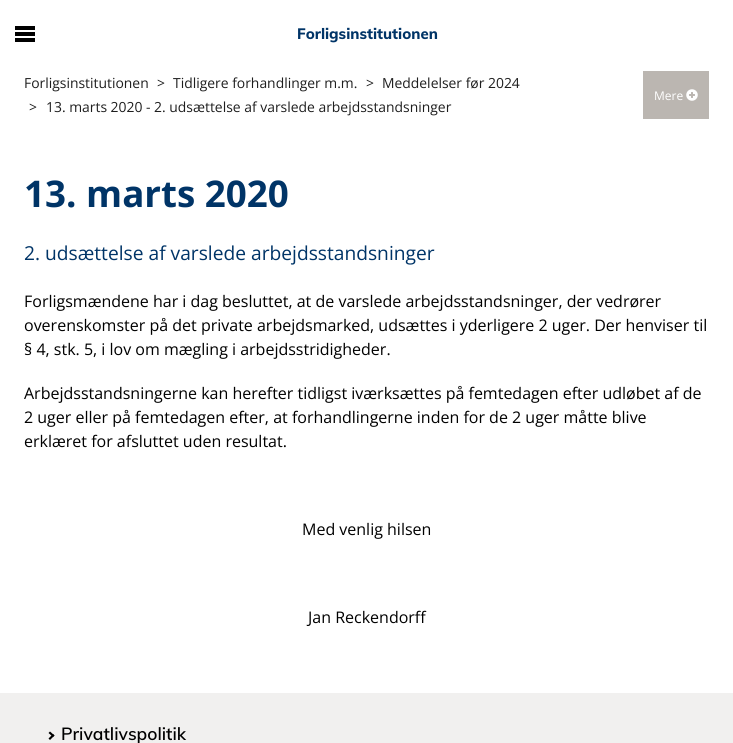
import math
import cairo

surface = cairo.ImageSurface(cairo.FORMAT_RGB24, 733, 743)
c = cairo.Context(surface)
options = cairo.FontOptions()
options.set_hint_metrics(cairo.HINT_METRICS_OFF)
options.set_hint_style(cairo.HINT_STYLE_NONE)
c.set_font_options(options)
c.set_miter_limit(4)
def C(code):
 c.set_source_rgb(*(v / 255 for v in bytes.fromhex(code[-6:])))
def F(family, size, italic, bold):
 c.select_font_face(family, cairo.FONT_SLANT_ITALIC if italic else cairo.FONT_SLANT_NORMAL, cairo.FONT_WEIGHT_BOLD if bold else cairo.FONT_WEIGHT_NORMAL)
 c.set_font_size(size)
def T(x, y, s):
 c.move_to(x, y)
 c.show_text(s)
def R(x, y, w, h):
 c.rectangle(x, y, w, h)
 c.fill()
def I(path, x, y, w, h):
 c.save()
 c.set_source_surface(cairo.ImageSurface.create_from_png(path), x, y)
 c.rectangle(x, y, w, h)
 c.fill()
 c.restore()
C('ffffff')
c.paint()
C('000000')
R(15,26,20,4)
R(15,32,20,4)
R(15,38,20,4)
F('Muli ExtraBold',15,0,0)
C('003467')
T(297,39,'Forligsinstitutionen')
F('Open Sans',13.9,0,0)
C('1e1e1e')
T(24,88,'Forligsinstitutionen')
T(157,88,'>')
T(173,88,'Tidligere forhandlinger m.m.')
T(366,88,'>')
T(382,88,'Meddelelser før 2024')
T(29,112,'>')
T(46,112,'13. marts 2020 - 2. udsættelse af varslede arbejdsstandsninger')
C('bbb6b1')
R(643,71,66,48)
F('Open Sans',12,0,0)
C('ffffff')
T(654,100,'Mere')
I('1.png',686,89,12,12)
F('Open Sans',36.75,0,1)
C('003467')
T(24,207,'13. marts 2020')
F('Open Sans',19.2,0,0)
T(24,260,'2. udsættelse af varslede arbejdsstandsninger')
F('Open Sans',16,0,0)
C('000000')
T(24,307,'Forligsmændene har i dag besluttet, at de varslede arbejdsstandsninger, der vedrører')
T(24,331,'overenskomster på det private arbejdsmarked, udsættes i yderligere 2 uger. Der henviser til')
T(24,355,'§ 4, stk. 5, i lov om mægling i arbejdsstridigheder.')
T(24,399,'Arbejdsstandsningerne kan herefter tidligst iværksættes på femtedagen efter udløbet af de')
T(24,423,'2 uger eller på femtedagen efter, at forhandlingerne inden for de 2 uger måtte blive')
T(24,447,'erklæret for afsluttet uden resultat.')
T(302,535,'Med venlig hilsen')
T(308,623,'Jan Reckendorff')
C('f1f0ef')
R(0,693,733,50)
C('000000')
c.new_path()
c.move_to(50,731.5)
c.line_to(54.5,735.5)
c.line_to(53,737)
c.line_to(48.5,733)
c.close_path()
c.fill()
c.new_path()
c.move_to(53,734)
c.line_to(54.5,735.5)
c.line_to(50,740)
c.line_to(48.5,738.5)
c.close_path()
c.fill()
F('Muli SemiBold',17.5,0,0)
T(61,740,'Privatlivspolitik')
surface.write_to_png('o.png')
